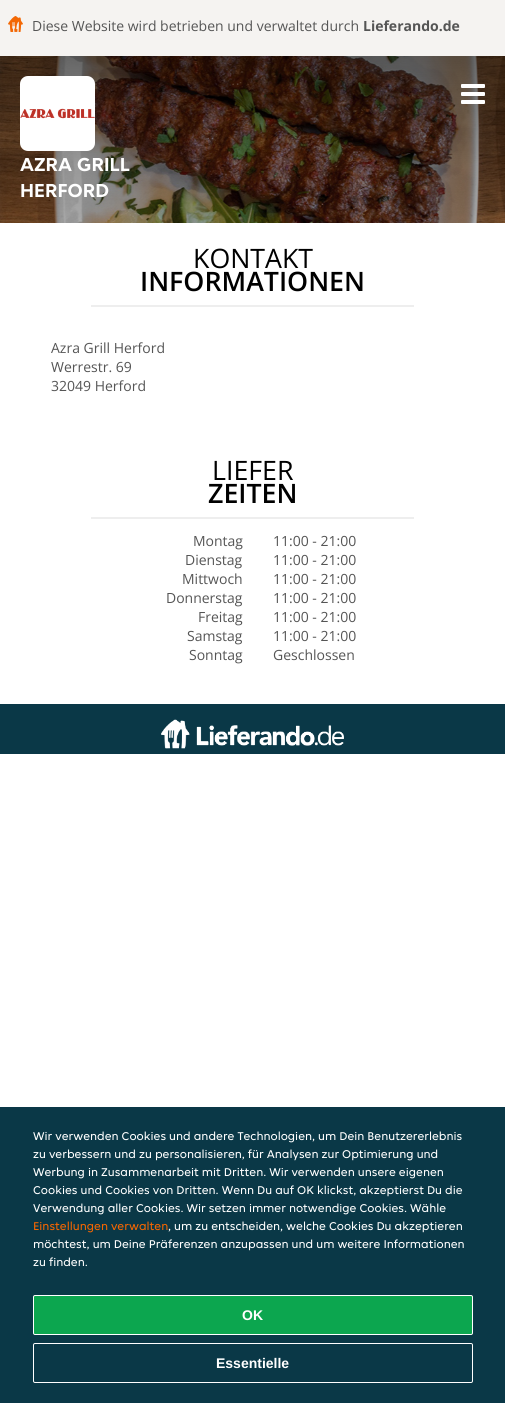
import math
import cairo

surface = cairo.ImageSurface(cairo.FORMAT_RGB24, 505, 1403)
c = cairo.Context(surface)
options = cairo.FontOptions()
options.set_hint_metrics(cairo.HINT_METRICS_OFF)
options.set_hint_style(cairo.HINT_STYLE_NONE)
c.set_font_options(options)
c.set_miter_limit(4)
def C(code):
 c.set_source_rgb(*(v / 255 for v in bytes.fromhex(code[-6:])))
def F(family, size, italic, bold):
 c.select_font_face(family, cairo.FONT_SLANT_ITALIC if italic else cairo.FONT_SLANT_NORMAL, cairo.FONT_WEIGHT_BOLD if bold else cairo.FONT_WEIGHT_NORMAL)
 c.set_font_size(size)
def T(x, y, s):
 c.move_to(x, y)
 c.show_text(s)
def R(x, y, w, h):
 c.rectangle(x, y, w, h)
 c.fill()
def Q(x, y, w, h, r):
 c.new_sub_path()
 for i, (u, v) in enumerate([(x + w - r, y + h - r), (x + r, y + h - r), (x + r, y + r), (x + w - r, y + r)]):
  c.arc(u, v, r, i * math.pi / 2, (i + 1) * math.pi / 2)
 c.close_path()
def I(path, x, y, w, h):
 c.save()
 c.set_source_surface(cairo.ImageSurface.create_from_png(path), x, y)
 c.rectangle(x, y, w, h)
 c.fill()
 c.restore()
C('ffffff')
c.paint()
C('f5f3f1')
R(0,0,505,56)
I('1.png',8,16,15,16)
F('Open Sans',14,0,0)
C('555555')
T(32,31,'Diese Website wird betrieben und verwaltet durch')
F('Open Sans',14,0,1)
T(363,31,'Lieferando.de')
I('2.png',0,56,505,167)
gradient = cairo.LinearGradient(252,0,253,500)
gradient.add_color_stop_rgba(0,0,0,0,.7)
gradient.add_color_stop_rgba(.33,0,0,0,.4)
gradient.add_color_stop_rgba(.67,0,0,0,.2)
gradient.add_color_stop_rgba(1,0,0,0,0)
c.set_source(gradient)
R(0,56,505,167)
I('3.png',461,84,24,20)
C('ffffff')
Q(20,76,75,75,8)
c.fill()
I('4.png',20,108,75,11)
F('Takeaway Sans',20,0,1)
T(20,171,'AZRA GRILL')
T(20,197,'HERFORD')
F('Open Sans',26.75,0,0)
C('000000')
T(193,268,'KONTAKT')
F('Open Sans SemiBold',26.75,0,0)
T(140,291,'INFORMATIONEN')
C('eeeeee')
R(91,305,323,2)
F('Open Sans',14,0,0)
C('555555')
T(51,353,'Azra Grill Herford')
T(51,372,'Werrestr. 69')
T(51,391,'32049 Herford')
F('Open Sans',26.75,0,0)
C('000000')
T(212,480,'LIEFER')
F('Open Sans SemiBold',26.75,0,0)
T(208,503,'ZEITEN')
C('eeeeee')
R(91,517,323,2)
F('Open Sans',14,0,0)
C('555555')
T(193,546,'Montag')
T(273,546,'11:00 - 21:00')
T(185,565,'Dienstag')
T(273,565,'11:00 - 21:00')
T(182,584,'Mittwoch')
T(273,584,'11:00 - 21:00')
T(166,603,'Donnerstag')
T(273,603,'11:00 - 21:00')
T(198,622,'Freitag')
T(273,622,'11:00 - 21:00')
T(187,641,'Samstag')
T(273,641,'11:00 - 21:00')
T(189,660,'Sonntag')
T(273,660,'Geschlossen')
C('0a3847')
R(0,704,505,50)
I('5.png',161,719,183,30)
R(0,1107,505,296)
F('Takeaway Sans',12,0,0)
C('ffffff')
T(33,1140,'Wir verwenden Cookies und andere Technologien, um Dein Benutzererlebnis')
T(33,1158,'zu verbessern und zu personalisieren, für Analysen zur Optimierung und')
T(33,1176,'Werbung in Zusammenarbeit mit Dritten. Wir verwenden unsere eigenen')
T(33,1194,'Cookies und Cookies von Dritten. Wenn Du auf OK klickst, akzeptierst Du die')
T(33,1212,'Verwendung aller Cookies. Wir setzen immer notwendige Cookies. Wähle')
C('f86600')
T(33,1230,'Einstellungen verwalten')
C('ffffff')
T(168,1230,', um zu entscheiden, welche Cookies Du akzeptieren')
T(33,1248,'möchtest, um Deine Präferenzen anzupassen und um weitere Informationen')
T(33,1266,'zu finden.')
C('0ca64f')
Q(33.5,1295.5,439,39,1.5)
c.fill_preserve()
C('ffffff')
c.set_line_width(1)
c.stroke()
F('Liberation Sans',14,0,1)
T(242,1320,'OK')
Q(33.5,1343.5,439,39,1.5)
c.stroke()
T(216,1368,'Essentielle')
surface.write_to_png('o.png')
